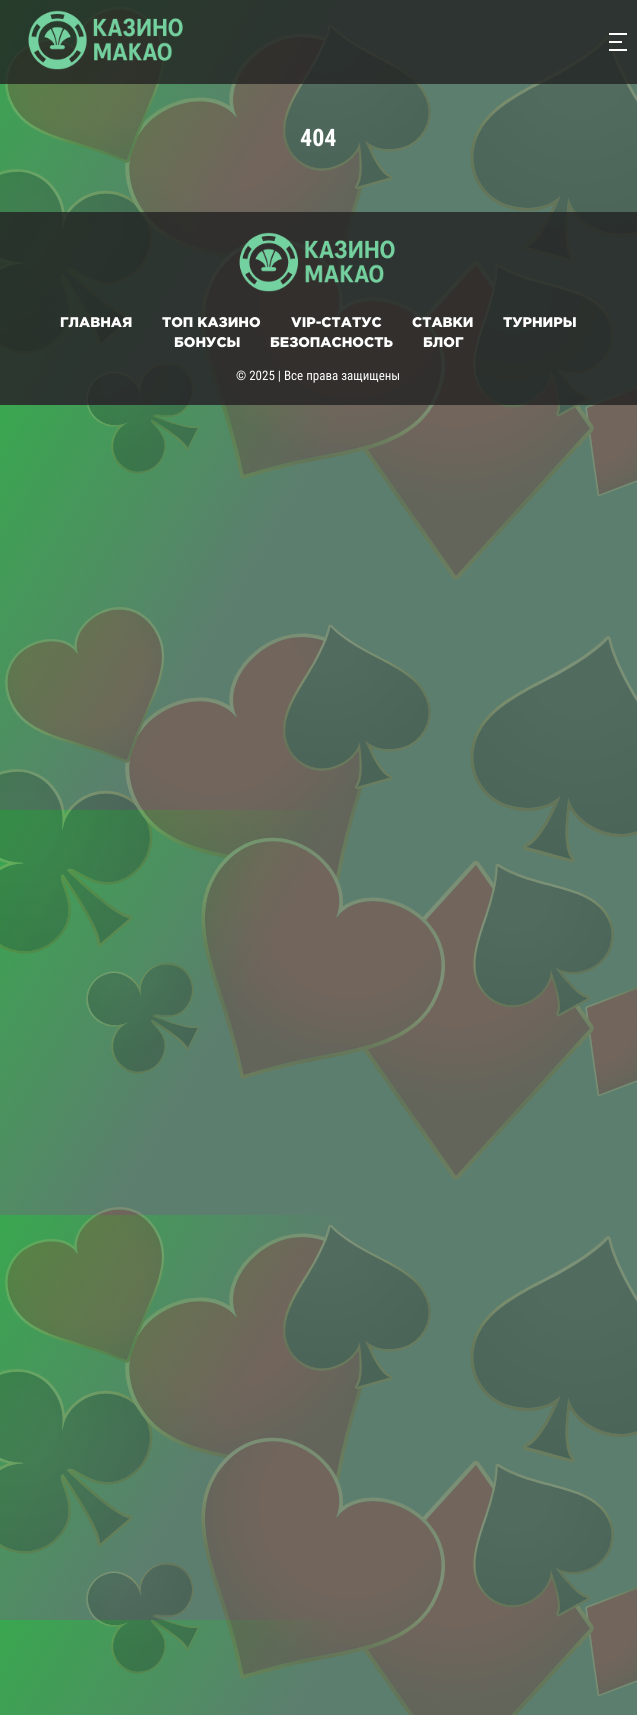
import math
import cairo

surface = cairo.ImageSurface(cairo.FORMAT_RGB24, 637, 1715)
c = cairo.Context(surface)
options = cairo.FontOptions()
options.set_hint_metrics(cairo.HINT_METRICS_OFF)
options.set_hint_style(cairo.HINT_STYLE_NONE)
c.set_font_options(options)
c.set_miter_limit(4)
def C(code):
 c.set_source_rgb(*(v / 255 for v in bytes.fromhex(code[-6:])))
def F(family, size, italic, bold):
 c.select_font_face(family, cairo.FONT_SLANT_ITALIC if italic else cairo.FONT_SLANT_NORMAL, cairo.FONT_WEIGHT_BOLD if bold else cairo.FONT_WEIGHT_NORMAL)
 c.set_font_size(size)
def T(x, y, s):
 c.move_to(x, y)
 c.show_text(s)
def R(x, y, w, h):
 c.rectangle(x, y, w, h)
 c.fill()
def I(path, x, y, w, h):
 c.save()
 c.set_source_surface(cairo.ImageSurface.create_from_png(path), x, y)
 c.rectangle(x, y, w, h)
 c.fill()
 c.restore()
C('ffffff')
c.paint()
I('1.png',0,0,637,1715)
c.set_source_rgba(0.133,0.133,0.133,0.8)
R(0,0,637,84)
I('2.png',28,10,155,60)
C('ffffff')
R(609,33,18,2)
R(609,41,13,2)
R(609,49,18,2)
F('Roboto Condensed',24,0,1)
T(300,146,'404')
c.set_source_rgba(0.133,0.133,0.133,0.8)
R(0,212,637,193)
I('3.png',239,232,156,60)
F('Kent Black',14,0,0)
C('ffffff')
T(60,327,'ГЛАВНАЯ')
T(162,327,'ТОП КАЗИНО')
T(291,327,'VIP-СТАТУС')
T(412,327,'СТАВКИ')
T(503,327,'ТУРНИРЫ')
T(174,347,'БОНУСЫ')
T(270,347,'БЕЗОПАСНОСТЬ')
T(423,347,'БЛОГ')
F('Roboto Condensed',13,0,0)
T(236,380,'© 2025 | Все права защищены')
surface.write_to_png('o.png')
